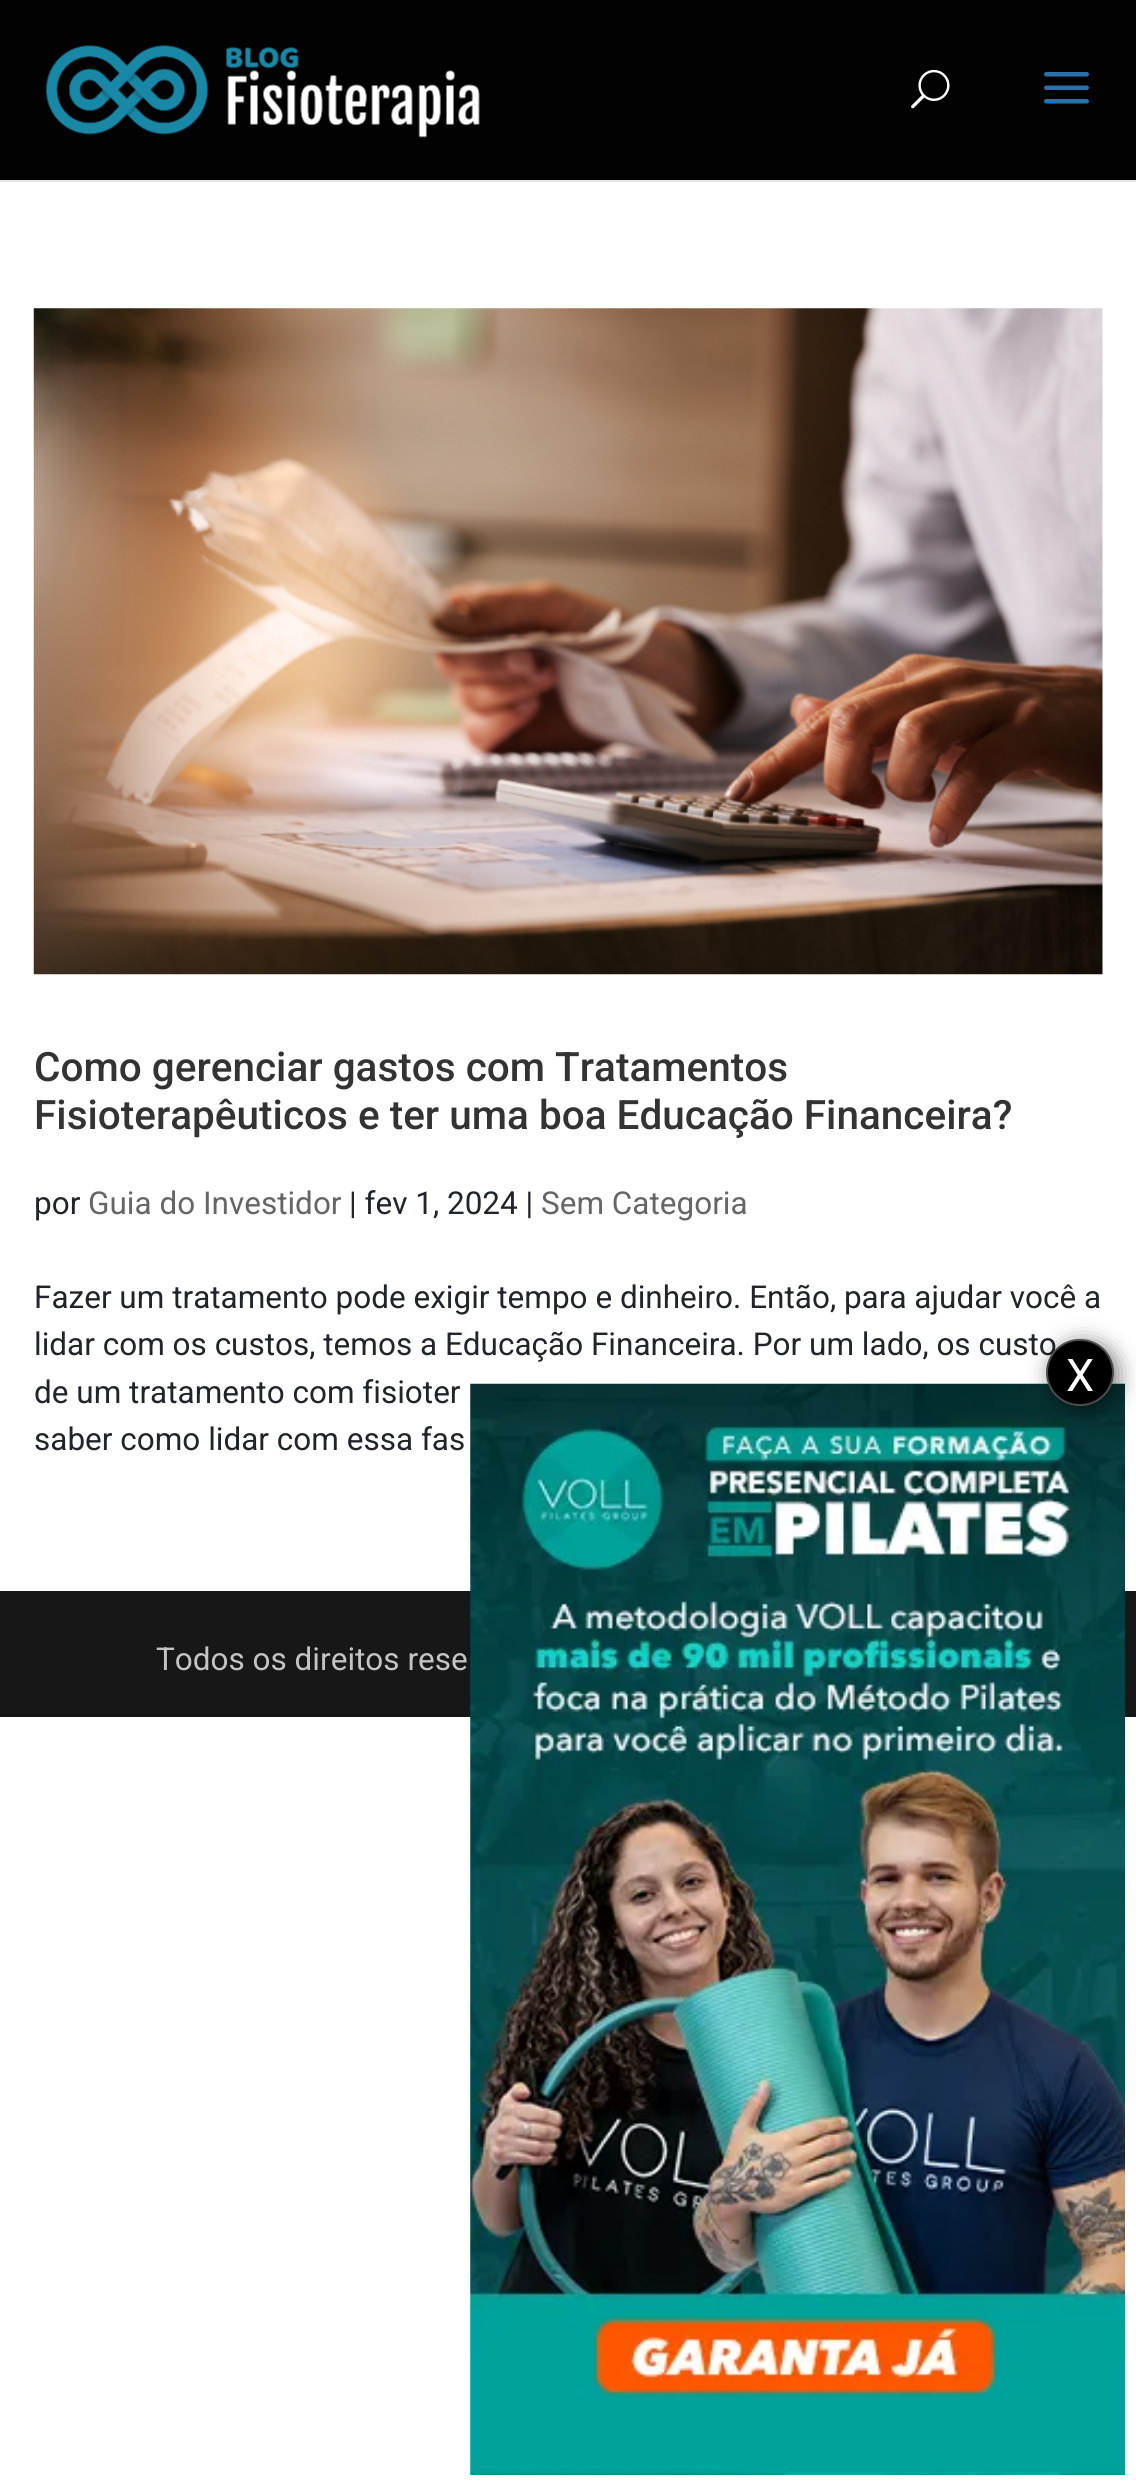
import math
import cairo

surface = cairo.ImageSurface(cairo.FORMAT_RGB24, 1136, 2481)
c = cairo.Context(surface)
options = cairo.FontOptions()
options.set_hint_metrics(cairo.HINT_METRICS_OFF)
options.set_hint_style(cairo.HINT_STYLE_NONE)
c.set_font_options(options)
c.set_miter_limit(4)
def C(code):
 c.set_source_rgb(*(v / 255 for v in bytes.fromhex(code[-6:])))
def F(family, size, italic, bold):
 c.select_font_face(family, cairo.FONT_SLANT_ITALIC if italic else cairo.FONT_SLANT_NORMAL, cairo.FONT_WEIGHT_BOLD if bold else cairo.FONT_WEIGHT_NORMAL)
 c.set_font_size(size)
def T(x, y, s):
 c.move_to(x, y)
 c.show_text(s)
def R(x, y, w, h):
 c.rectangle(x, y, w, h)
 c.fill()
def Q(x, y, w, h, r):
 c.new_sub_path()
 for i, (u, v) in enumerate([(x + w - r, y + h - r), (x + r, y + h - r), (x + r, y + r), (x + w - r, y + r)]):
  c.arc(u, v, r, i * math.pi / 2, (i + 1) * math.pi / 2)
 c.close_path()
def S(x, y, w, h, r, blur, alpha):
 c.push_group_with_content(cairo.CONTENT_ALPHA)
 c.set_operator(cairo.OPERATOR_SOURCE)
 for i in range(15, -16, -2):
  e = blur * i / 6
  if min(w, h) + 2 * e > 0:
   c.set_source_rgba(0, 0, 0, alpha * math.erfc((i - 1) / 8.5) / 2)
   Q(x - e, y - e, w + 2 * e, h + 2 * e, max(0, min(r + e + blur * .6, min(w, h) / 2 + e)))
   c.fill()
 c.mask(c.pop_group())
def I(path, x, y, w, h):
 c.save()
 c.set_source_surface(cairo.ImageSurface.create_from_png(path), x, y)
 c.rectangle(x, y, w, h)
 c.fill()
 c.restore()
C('ffffff')
c.paint()
C('e6e6e6')
R(0,180,1136,2)
C('020202')
R(0,0,1136,180)
I('1.png',45,45,435,93)
I('2.png',911,69,39,40)
I('3.png',1044,72,45,32)
I('4.png',33,308,1070,667)
F('Roboto Medium',40.5,0,0)
C('333333')
T(34,1081,'Como gerenciar gastos com Tratamentos')
T(34,1129,'Fisioterapêuticos e ter uma boa Educação Financeira?')
F('Roboto',31.5,0,0)
C('212529')
T(34,1214,'por')
C('666666')
T(88,1214,'Guia do Investidor')
C('212529')
T(349,1214,'| fev 1, 2024 |')
C('666666')
T(541,1214,'Sem Categoria')
C('212529')
T(34,1308,'Fazer um tratamento pode exigir tempo e dinheiro. Então, para ajudar você a')
T(34,1355,'lidar com os custos, temos a Educação Financeira. Por um lado, os custo')
T(34,1403,'de um tratamento com fisioter')
T(34,1450,'saber como lidar com essa fas')
C('171717')
R(0,1591,1136,126)
C('c4c4c4')
T(156,1670,'Todos os direitos rese')
I('5.png',470,1383,655,1092)
C('000000')
S(1051,1343,67,68,33.5,11,.52)
C('000000')
Q(1047,1340,66,65,32.5)
c.fill_preserve()
C('4c4c4c')
c.stroke()
F('Roboto',45,0,0)
C('ffffff')
T(1066,1391,'X')
surface.write_to_png('o.png')
